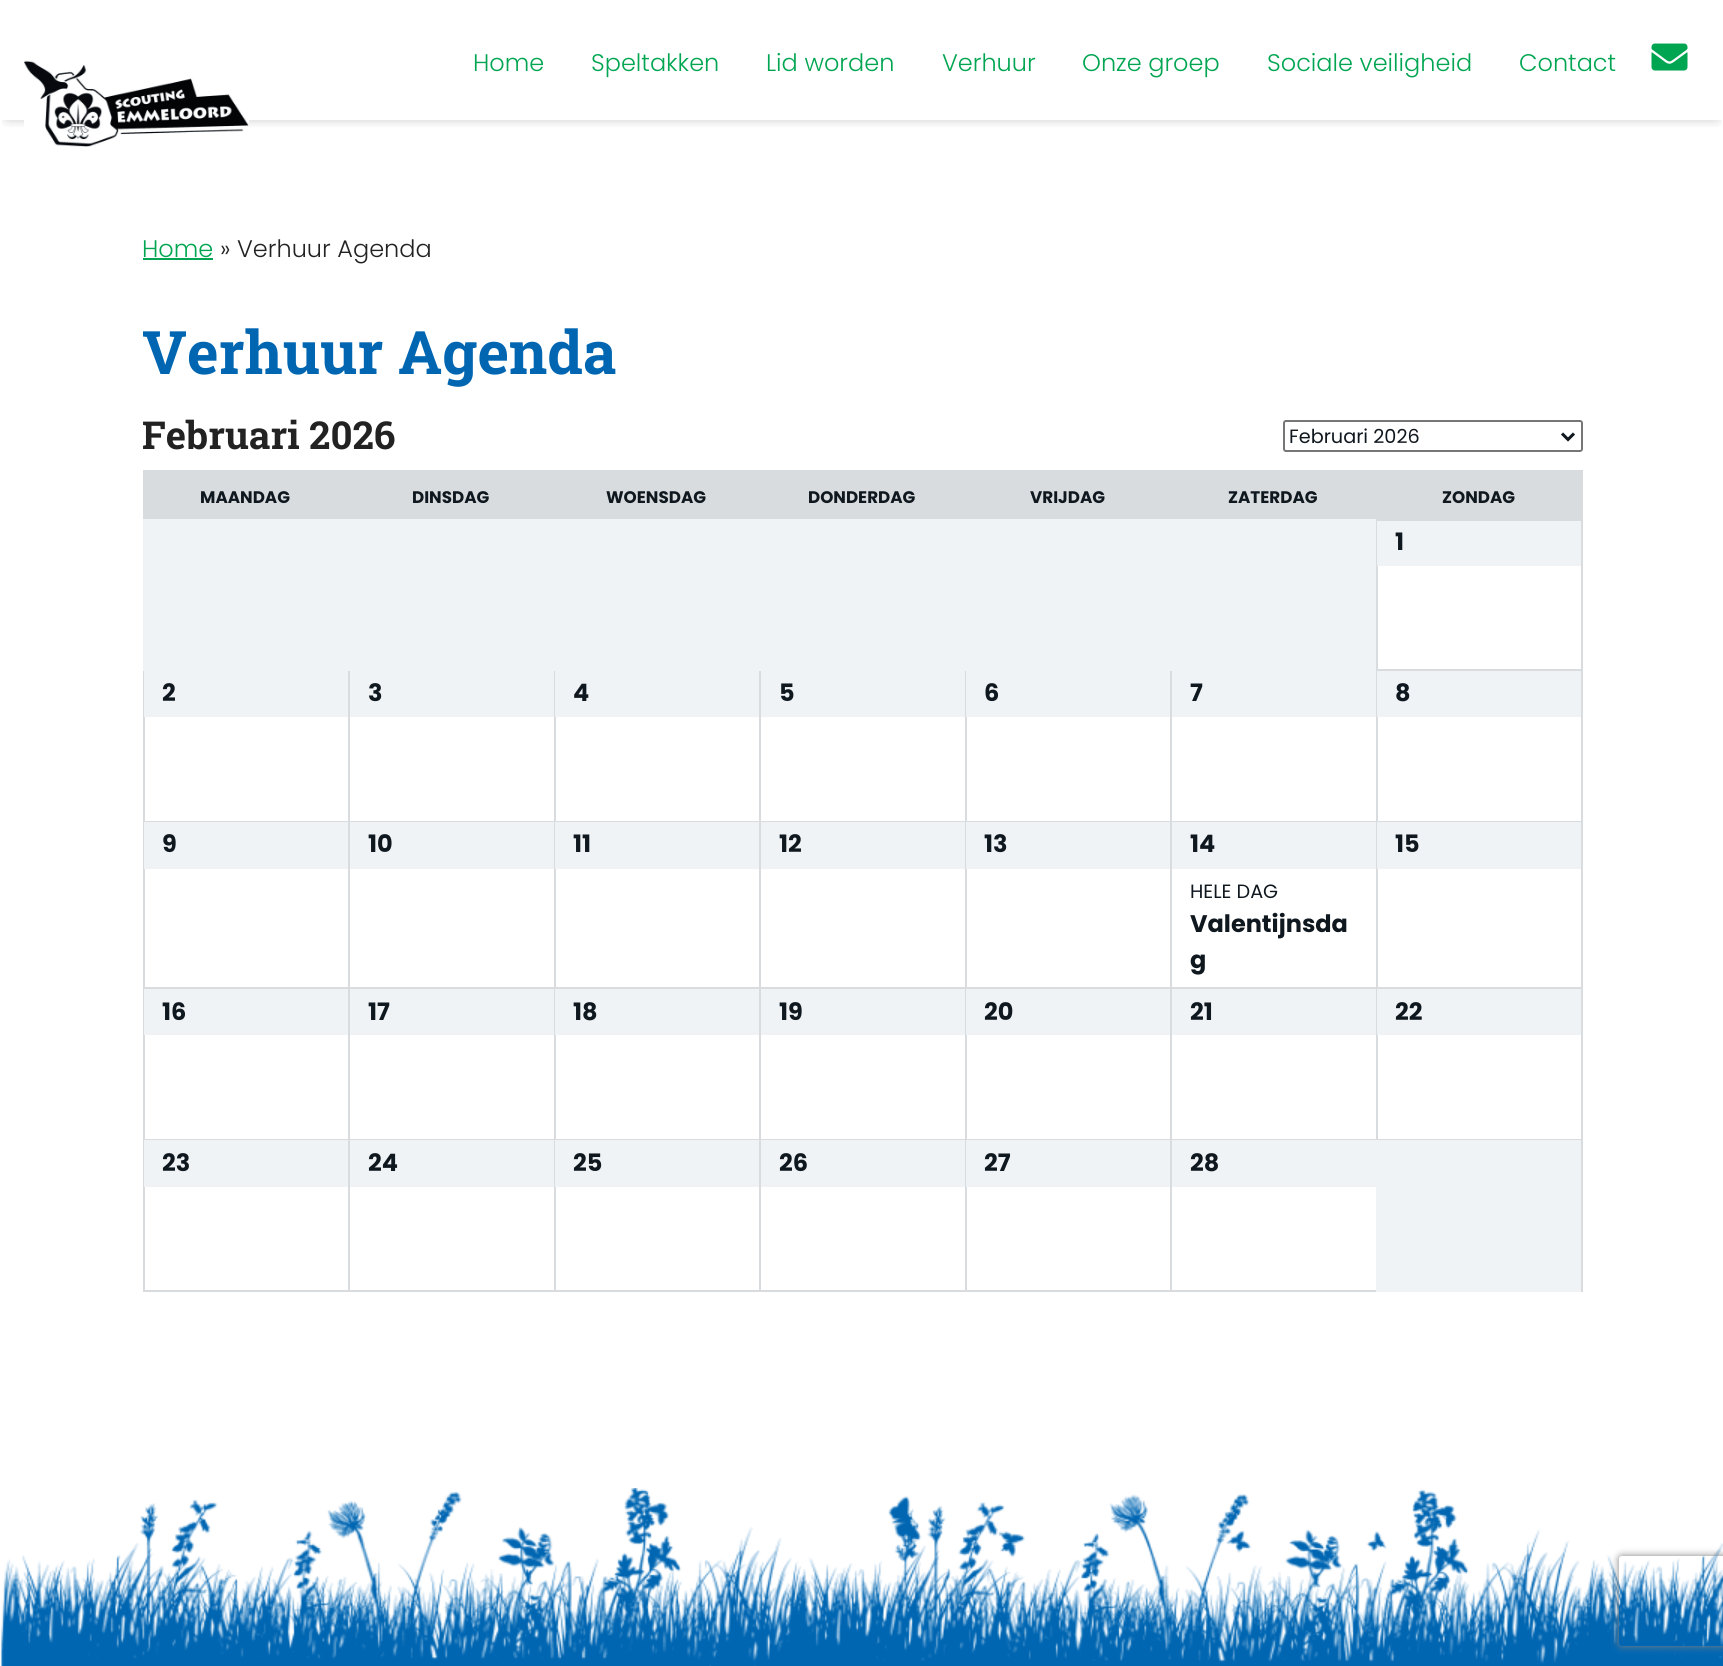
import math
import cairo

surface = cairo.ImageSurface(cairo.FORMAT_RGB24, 1723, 1666)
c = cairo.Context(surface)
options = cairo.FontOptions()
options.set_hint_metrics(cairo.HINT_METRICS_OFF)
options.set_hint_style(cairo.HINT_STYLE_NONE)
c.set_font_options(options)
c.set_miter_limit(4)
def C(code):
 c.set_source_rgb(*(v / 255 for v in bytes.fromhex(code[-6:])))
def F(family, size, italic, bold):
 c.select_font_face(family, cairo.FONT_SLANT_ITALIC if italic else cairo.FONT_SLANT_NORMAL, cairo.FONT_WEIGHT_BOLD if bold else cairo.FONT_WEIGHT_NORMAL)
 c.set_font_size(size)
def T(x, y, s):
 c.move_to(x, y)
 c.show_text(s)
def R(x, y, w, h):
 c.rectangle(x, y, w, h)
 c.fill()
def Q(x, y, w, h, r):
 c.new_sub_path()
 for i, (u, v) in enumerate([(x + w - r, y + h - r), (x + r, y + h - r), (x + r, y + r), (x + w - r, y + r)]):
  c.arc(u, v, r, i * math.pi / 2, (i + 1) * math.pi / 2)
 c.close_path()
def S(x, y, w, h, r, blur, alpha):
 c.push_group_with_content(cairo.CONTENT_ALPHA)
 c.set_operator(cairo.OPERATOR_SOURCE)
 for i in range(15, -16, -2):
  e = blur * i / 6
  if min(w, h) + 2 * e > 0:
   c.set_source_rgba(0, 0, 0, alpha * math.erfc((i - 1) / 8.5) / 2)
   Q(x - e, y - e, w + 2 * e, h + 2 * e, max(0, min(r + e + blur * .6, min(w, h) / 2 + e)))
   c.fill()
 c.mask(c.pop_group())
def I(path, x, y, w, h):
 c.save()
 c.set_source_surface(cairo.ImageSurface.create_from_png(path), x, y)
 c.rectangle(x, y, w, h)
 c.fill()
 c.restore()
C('ffffff')
c.paint()
c.save()
c.rectangle(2,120,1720,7)
c.clip()
C('000000')
S(8,9,1708,105,0,7.5,.5)
c.restore()
I('1.png',24,60,225,87)
F('Poppins Light',24,0,0)
C('00a551')
T(473,71,'Home')
T(591,71,'Speltakken')
T(766,71,'Lid worden')
T(942,71,'Verhuur')
T(1082,71,'Onze groep')
T(1267,71,'Sociale veiligheid')
T(1519,71,'Contact')
I('2.png',1651,43,37,28)
T(142,257,'Home')
R(143,258,70,2)
C('222222')
T(220,257,'» Verhuur Agenda')
F('Roboto Slab',60,0,1)
C('0066b2')
T(142,374,'Verhuur Agenda')
F('Roboto Slab',38.5,0,1)
C('222222')
T(142,449,'Februari 2026')
C('d9dcdf')
R(143,470,1438,49)
F('Poppins',16.75,0,1)
C('10181f')
T(200,503,'MAANDAG')
T(412,503,'DINSDAG')
T(606,503,'WOENSDAG')
T(808,503,'DONDERDAG')
T(1030,503,'VRIJDAG')
T(1228,503,'ZATERDAG')
T(1442,503,'ZONDAG')
C('d9dcdf')
R(1376,821,207,1)
R(1376,987,207,2)
R(1170,1139,413,1)
R(1376,987,2,153)
R(1170,987,207,2)
R(1376,821,2,168)
R(1170,821,207,2)
R(1170,1290,207,2)
R(1170,1139,2,153)
R(965,1139,207,2)
R(1170,987,2,153)
R(965,987,207,2)
R(1170,821,2,168)
R(965,821,207,2)
R(965,1290,207,2)
R(965,1139,2,153)
R(759,1139,207,2)
R(965,987,2,153)
R(759,987,207,2)
R(965,821,2,168)
R(759,821,207,2)
R(759,1290,207,2)
R(759,1139,2,153)
R(554,1139,207,2)
R(759,987,2,153)
R(554,987,207,2)
R(759,821,2,168)
R(554,821,207,2)
R(554,1290,207,2)
R(554,1139,2,153)
R(348,1139,207,2)
R(554,987,2,153)
R(348,987,207,2)
R(554,821,2,168)
R(348,821,207,2)
R(348,1290,207,2)
R(348,1139,2,153)
R(143,1139,207,2)
R(348,987,2,153)
R(143,987,207,2)
R(348,821,2,168)
R(143,821,207,2)
R(348,669,2,153)
R(554,669,2,153)
R(759,669,2,153)
R(965,669,2,153)
R(1170,669,2,153)
R(143,1290,207,2)
R(143,1139,2,153)
R(143,987,2,153)
R(143,669,2,320)
C('f0f3f6')
R(143,519,1233,152)
C('d9dcdf')
R(1376,519,207,2)
R(1376,669,207,2)
R(1581,1139,2,153)
R(1581,987,2,153)
R(1581,821,2,168)
R(1581,669,2,153)
R(1581,470,2,201)
R(1376,669,2,153)
R(1376,519,2,152)
C('f0f3f6')
R(1377,521,204,45)
F('Poppins',24,0,1)
C('10181f')
T(1395,550,'1')
C('f0f3f6')
R(144,671,204,46)
C('10181f')
T(162,701,'2')
C('f0f3f6')
R(350,671,204,46)
C('10181f')
T(368,701,'3')
C('f0f3f6')
R(555,671,204,46)
C('10181f')
T(573,701,'4')
C('f0f3f6')
R(761,671,204,46)
C('10181f')
T(779,701,'5')
C('f0f3f6')
R(966,671,204,46)
C('10181f')
T(984,701,'6')
C('f0f3f6')
R(1172,671,204,46)
C('10181f')
T(1190,701,'7')
C('f0f3f6')
R(1377,671,204,46)
C('10181f')
T(1395,701,'8')
C('f0f3f6')
R(144,822,204,47)
C('10181f')
T(162,852,'9')
C('f0f3f6')
R(350,822,204,47)
C('10181f')
T(368,852,'10')
C('f0f3f6')
R(555,822,204,47)
C('10181f')
T(573,852,'11')
C('f0f3f6')
R(761,822,204,47)
C('10181f')
T(779,852,'12')
C('f0f3f6')
R(966,822,204,47)
C('10181f')
T(984,852,'13')
C('f0f3f6')
R(1172,822,204,47)
C('10181f')
T(1190,852,'14')
F('Poppins',19.25,0,0)
T(1190,898,'HELE DAG')
F('Poppins',24,0,1)
T(1190,932,'Valentijnsda')
T(1190,968,'g')
C('f0f3f6')
R(1377,822,204,47)
C('10181f')
T(1395,852,'15')
C('f0f3f6')
R(144,989,204,46)
C('10181f')
T(162,1020,'16')
C('f0f3f6')
R(350,989,204,46)
C('10181f')
T(368,1020,'17')
C('f0f3f6')
R(555,989,204,46)
C('10181f')
T(573,1020,'18')
C('f0f3f6')
R(761,989,204,46)
C('10181f')
T(779,1020,'19')
C('f0f3f6')
R(966,989,204,46)
C('10181f')
T(984,1020,'20')
C('f0f3f6')
R(1172,989,204,46)
C('10181f')
T(1190,1020,'21')
C('f0f3f6')
R(1377,989,204,46)
C('10181f')
T(1395,1020,'22')
C('f0f3f6')
R(144,1140,204,47)
C('10181f')
T(162,1171,'23')
C('f0f3f6')
R(350,1140,204,47)
C('10181f')
T(368,1171,'24')
C('f0f3f6')
R(555,1140,204,47)
C('10181f')
T(573,1171,'25')
C('f0f3f6')
R(761,1140,204,47)
C('10181f')
T(779,1171,'26')
C('f0f3f6')
R(966,1140,204,47)
C('10181f')
T(984,1171,'27')
C('f0f3f6')
R(1376,1140,205,152)
R(1172,1140,204,47)
C('10181f')
T(1190,1171,'28')
Q(1284,421,298,30,2)
C('767676')
c.stroke()
c.new_path()
c.move_to(1562,433.5)
c.line_to(1568,439.5)
c.line_to(1574,433.5)
C('10181f')
c.set_line_width(3)
c.stroke()
F('Poppins',19.25,0,0)
T(1289,443,'Februari 2026')
I('3.png',0,1488,1723,178)
c.save()
c.set_fill_rule(cairo.FILL_RULE_EVEN_ODD)
c.new_path()
c.move_to(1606,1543)
c.line_to(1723,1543)
c.line_to(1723,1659)
c.line_to(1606,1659)
c.close_path()
c.move_to(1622,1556)
c.line_to(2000,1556)
c.curve_to(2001.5,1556,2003,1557.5,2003,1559)
c.line_to(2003,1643)
c.curve_to(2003,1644.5,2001.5,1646,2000,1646)
c.line_to(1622,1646)
c.curve_to(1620.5,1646,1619,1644.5,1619,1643)
c.line_to(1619,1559)
c.curve_to(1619,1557.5,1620.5,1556,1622,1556)
c.close_path()
c.clip()
C('808080')
S(1619,1556,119,90,3,4,1)
c.restore()
surface.write_to_png('o.png')
